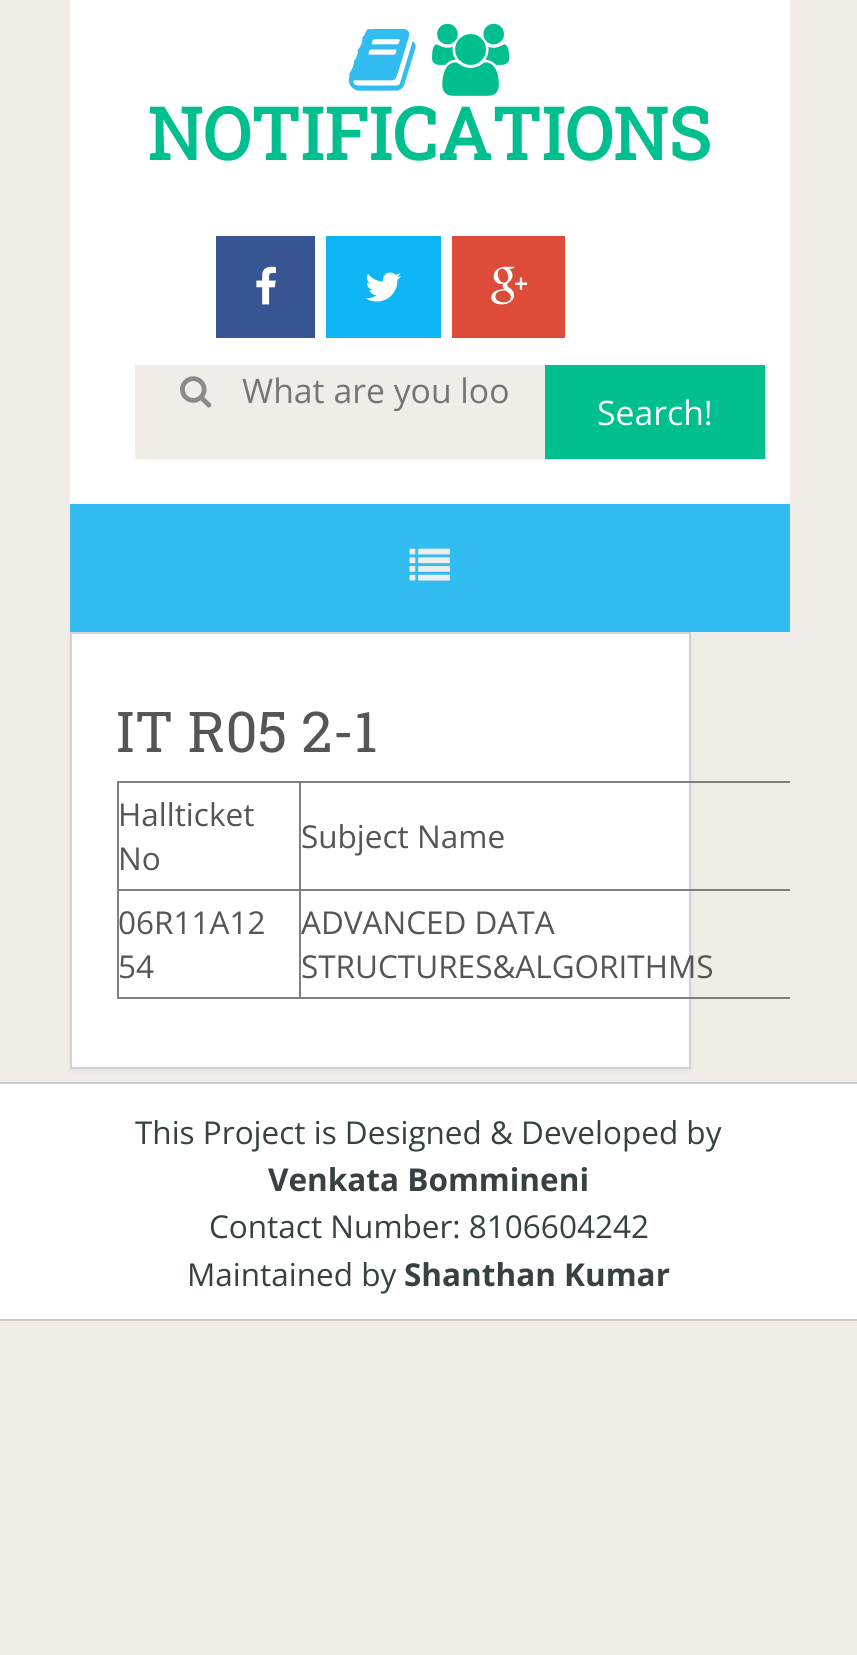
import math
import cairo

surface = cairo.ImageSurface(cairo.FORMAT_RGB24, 857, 1655)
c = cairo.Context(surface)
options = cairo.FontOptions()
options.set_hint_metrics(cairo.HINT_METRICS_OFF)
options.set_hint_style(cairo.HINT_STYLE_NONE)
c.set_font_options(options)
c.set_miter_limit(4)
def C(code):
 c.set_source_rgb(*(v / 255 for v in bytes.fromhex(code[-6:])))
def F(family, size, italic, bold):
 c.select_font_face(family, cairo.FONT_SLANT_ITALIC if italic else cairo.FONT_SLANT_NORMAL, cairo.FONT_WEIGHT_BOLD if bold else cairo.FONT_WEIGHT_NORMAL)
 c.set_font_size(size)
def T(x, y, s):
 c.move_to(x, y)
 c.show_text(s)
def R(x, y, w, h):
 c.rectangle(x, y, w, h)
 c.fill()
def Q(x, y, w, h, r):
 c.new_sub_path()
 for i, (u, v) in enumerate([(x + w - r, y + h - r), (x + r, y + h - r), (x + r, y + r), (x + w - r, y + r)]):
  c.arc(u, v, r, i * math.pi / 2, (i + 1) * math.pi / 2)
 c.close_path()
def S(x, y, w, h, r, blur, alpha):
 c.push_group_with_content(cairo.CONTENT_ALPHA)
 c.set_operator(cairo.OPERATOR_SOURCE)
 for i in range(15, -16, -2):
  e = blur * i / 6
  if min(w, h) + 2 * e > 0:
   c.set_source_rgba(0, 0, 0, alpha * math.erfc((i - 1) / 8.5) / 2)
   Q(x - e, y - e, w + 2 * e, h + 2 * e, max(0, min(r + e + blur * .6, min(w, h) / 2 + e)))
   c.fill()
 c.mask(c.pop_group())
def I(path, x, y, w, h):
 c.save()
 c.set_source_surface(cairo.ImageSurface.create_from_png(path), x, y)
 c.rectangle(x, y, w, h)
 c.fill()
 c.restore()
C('f0ede9')
c.paint()
C('ffffff')
R(70,0,720,504)
I('1.png',348,28,68,63)
I('2.png',432,23,78,73)
F('Roboto Slab',72,0,1)
C('00bf8f')
T(147,160,'NOTIFICATIONS')
C('375593')
R(216,236,99,102)
I('3.png',256,266,20,39)
C('0eb6f6')
R(326,236,115,102)
I('4.png',365,272,36,30)
C('dd4b39')
R(452,236,113,102)
I('5.png',491,266,36,39)
C('f0ede9')
R(135,365,632,94)
I('6.png',180,376,32,32)
F('Open Sans',33.75,0,0)
C('757575')
T(242,403,'What are you loo')
C('00bf8f')
R(545,365,220,94)
C('ffffff')
T(597,425,'Search!')
C('33bcf2')
R(70,504,720,128)
I('7.png',409,548,41,33)
C('000000')
S(70,635,621,436,0,2,.05)
C('ffffff')
c.rectangle(71,633,619,435)
c.fill_preserve()
C('d2d2d2')
c.stroke()
F('Roboto Slab',56.25,0,0)
C('555555')
T(116,752,'IT R05 2-1')
C('808080')
R(117,781,673,2)
R(117,997,673,2)
R(117,781,2,218)
F('Open Sans',31.5,0,0)
C('555555')
T(118,826,'Hallticket')
T(118,870,'No')
C('808080')
R(299,889,491,2)
R(299,889,2,110)
R(117,889,185,2)
R(299,781,2,110)
C('555555')
T(301,848,'Subject Name')
T(118,934,'06R11A12')
T(118,978,'54')
T(301,934,'ADVANCED DATA')
T(301,978,'STRUCTURES&ALGORITHMS')
C('ffffff')
R(0,1084,857,235)
C('cccccc')
R(0,1082,857,2)
R(0,1319,857,2)
C('374142')
T(135,1144,'This Project is Designed & Developed by')
F('Open Sans',31.5,0,1)
T(268,1191,'Venkata Bommineni')
F('Open Sans',31.5,0,0)
T(209,1238,'Contact Number: 8106604242')
T(187,1286,'Maintained by')
F('Open Sans',31.5,0,1)
T(404,1286,'Shanthan Kumar')
surface.write_to_png('o.png')
